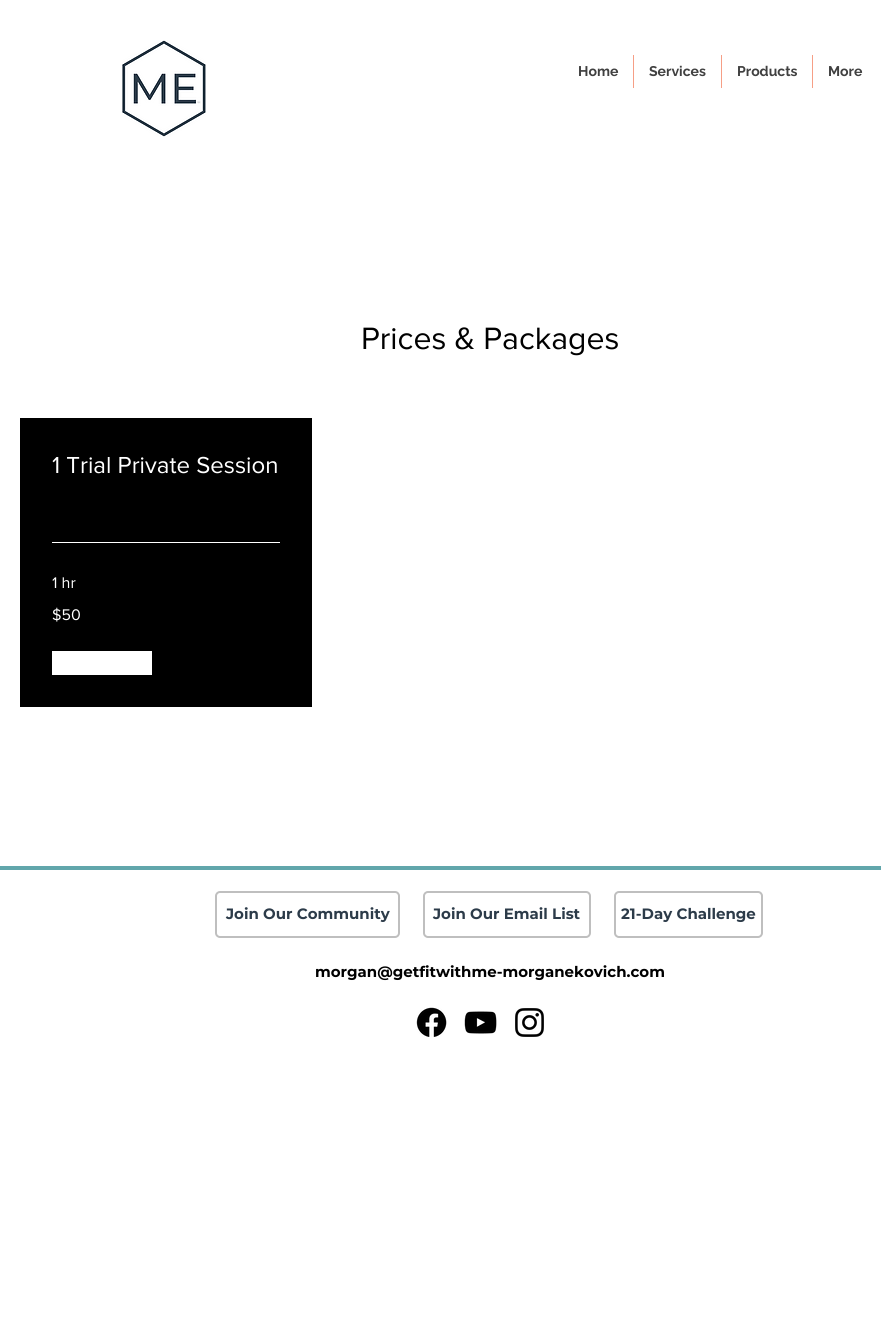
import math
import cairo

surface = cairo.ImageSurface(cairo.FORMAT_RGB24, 881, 1335)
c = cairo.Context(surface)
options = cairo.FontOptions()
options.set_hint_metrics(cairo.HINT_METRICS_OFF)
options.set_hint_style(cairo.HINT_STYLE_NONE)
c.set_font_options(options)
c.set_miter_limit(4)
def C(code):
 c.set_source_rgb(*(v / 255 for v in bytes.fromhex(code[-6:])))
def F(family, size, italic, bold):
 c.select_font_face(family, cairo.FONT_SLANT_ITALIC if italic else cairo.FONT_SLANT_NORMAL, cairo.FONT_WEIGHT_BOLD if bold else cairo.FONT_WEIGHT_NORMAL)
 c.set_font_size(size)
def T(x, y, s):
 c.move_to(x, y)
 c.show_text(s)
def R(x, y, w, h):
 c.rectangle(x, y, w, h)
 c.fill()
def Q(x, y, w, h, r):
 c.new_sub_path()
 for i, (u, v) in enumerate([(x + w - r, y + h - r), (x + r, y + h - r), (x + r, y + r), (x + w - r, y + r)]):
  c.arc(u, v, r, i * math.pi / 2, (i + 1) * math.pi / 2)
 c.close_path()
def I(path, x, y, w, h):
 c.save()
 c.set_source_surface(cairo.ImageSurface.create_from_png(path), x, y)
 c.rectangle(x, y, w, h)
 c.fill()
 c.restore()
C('ffffff')
c.paint()
I('1.png',122,40,84,97)
F('Raleway',14,0,1)
C('404040')
T(578,76,'Home')
C('f69f86')
R(633,55,1,33)
C('404040')
T(649,76,'Services')
C('f69f86')
R(721,55,1,33)
C('404040')
T(737,76,'Products')
C('f69f86')
R(812,55,1,33)
C('404040')
T(828,76,'More')
F('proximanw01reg',32,0,0)
C('000000')
T(361,349,'Prices & Packages')
R(20,418,292,289)
F('proximanw01reg',24,0,0)
C('ffffff')
T(52,473,'1 Trial Private Session')
R(52,542,228,1)
F('proximanw01reg',16,0,0)
T(52,588,'1 hr')
T(52,620,'$50')
R(52,651,100,24)
C('61a6ab')
R(0,866,881,4)
Q(216,892,183,45,4)
C('bfbfbf')
c.stroke()
F('Montserrat',15,0,1)
C('2c3b49')
T(226,919,'Join Our Community')
Q(424,892,166,45,4)
C('bfbfbf')
c.stroke()
C('2c3b49')
T(433,919,'Join Our Email List')
Q(615,892,147,45,4)
C('bfbfbf')
c.stroke()
C('2c3b49')
T(621,919,'21-Day Challenge')
C('000000')
T(315,977,'morgan@getfitwithme-morganekovich.com')
I('2.png',416,1007,31,30)
I('3.png',464,1011,33,23)
I('4.png',515,1008,29,29)
surface.write_to_png('o.png')
